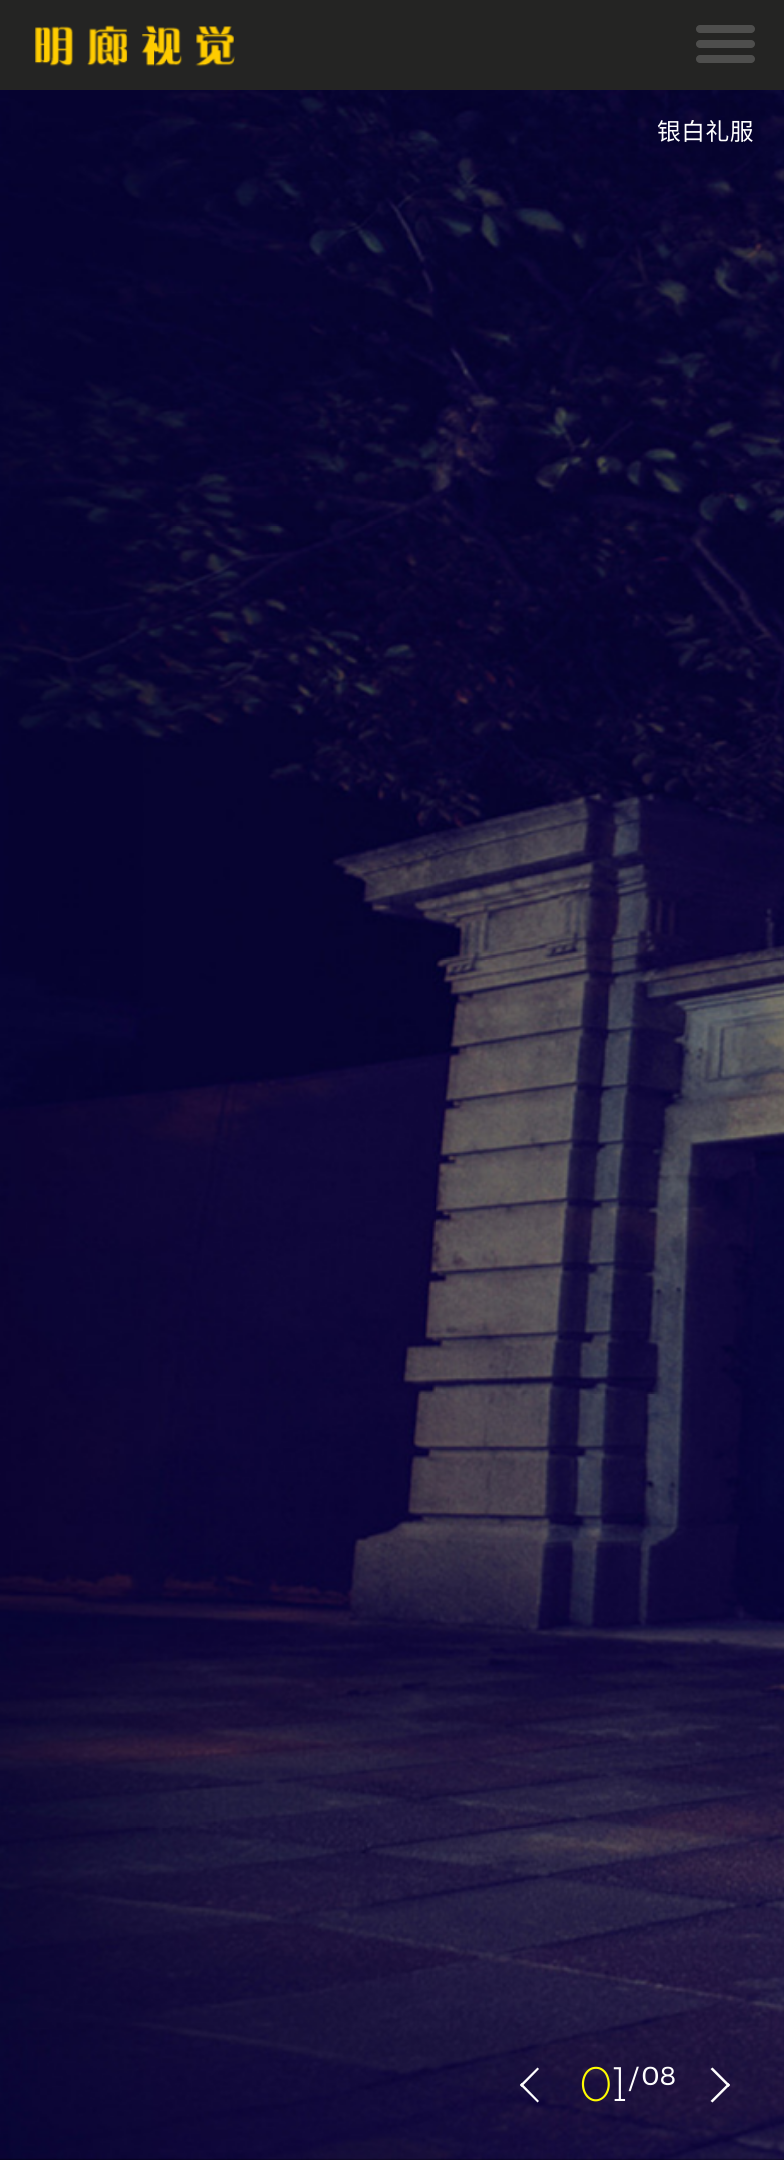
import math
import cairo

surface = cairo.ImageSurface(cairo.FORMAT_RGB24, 784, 2160)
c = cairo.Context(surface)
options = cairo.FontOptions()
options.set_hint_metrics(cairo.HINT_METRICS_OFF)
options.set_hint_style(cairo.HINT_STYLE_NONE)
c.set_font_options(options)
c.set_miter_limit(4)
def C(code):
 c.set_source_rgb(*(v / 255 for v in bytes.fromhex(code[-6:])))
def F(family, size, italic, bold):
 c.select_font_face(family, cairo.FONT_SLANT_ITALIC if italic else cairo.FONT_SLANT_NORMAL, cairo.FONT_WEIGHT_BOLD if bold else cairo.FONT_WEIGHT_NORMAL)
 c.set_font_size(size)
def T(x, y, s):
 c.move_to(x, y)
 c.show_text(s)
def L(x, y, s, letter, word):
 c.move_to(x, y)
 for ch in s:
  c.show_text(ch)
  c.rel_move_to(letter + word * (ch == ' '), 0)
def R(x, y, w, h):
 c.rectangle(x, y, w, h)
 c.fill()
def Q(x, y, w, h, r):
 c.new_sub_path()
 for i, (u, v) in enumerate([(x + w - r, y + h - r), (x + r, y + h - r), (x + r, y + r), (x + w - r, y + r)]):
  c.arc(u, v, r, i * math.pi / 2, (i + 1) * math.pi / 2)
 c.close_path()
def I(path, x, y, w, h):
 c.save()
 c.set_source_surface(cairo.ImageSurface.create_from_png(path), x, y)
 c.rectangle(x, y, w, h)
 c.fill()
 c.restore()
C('242423')
c.paint()
I('1.png',35,25,200,42)
C('4e4e4d')
Q(696,40,59,8,4)
c.fill()
Q(696,25,59,8,4)
c.fill()
Q(696,55,59,8,4)
c.fill()
C('000000')
R(0,2158,784,2)
I('2.png',0,90,784,2070)
F('Noto Sans CJK SC',23.75,0,0)
C('ffffff')
L(657,140,'银白礼服',.5,0)
c.new_path()
c.move_to(521.5,2083)
c.line_to(539,2101)
c.line_to(537.5,2102.5)
c.line_to(520,2085)
c.close_path()
c.fill()
c.new_path()
c.move_to(537.5,2067.5)
c.line_to(539,2069)
c.line_to(521.5,2087)
c.line_to(520,2085)
c.close_path()
c.fill()
F('Josefin Slab',52,0,0)
C('fffc00')
T(580,2101,'0')
C('ffffff')
T(612,2101,'1')
F('Montserrat',26,0,0)
T(629,2088,'/')
T(641,2085,'08')
c.new_path()
c.move_to(710.5,2069)
c.line_to(712.5,2067.5)
c.line_to(730,2085)
c.line_to(728.5,2087)
c.close_path()
c.fill()
c.new_path()
c.move_to(710.5,2101)
c.line_to(728.5,2083)
c.line_to(730,2085)
c.line_to(712.5,2102.5)
c.close_path()
c.fill()
surface.write_to_png('o.png')
